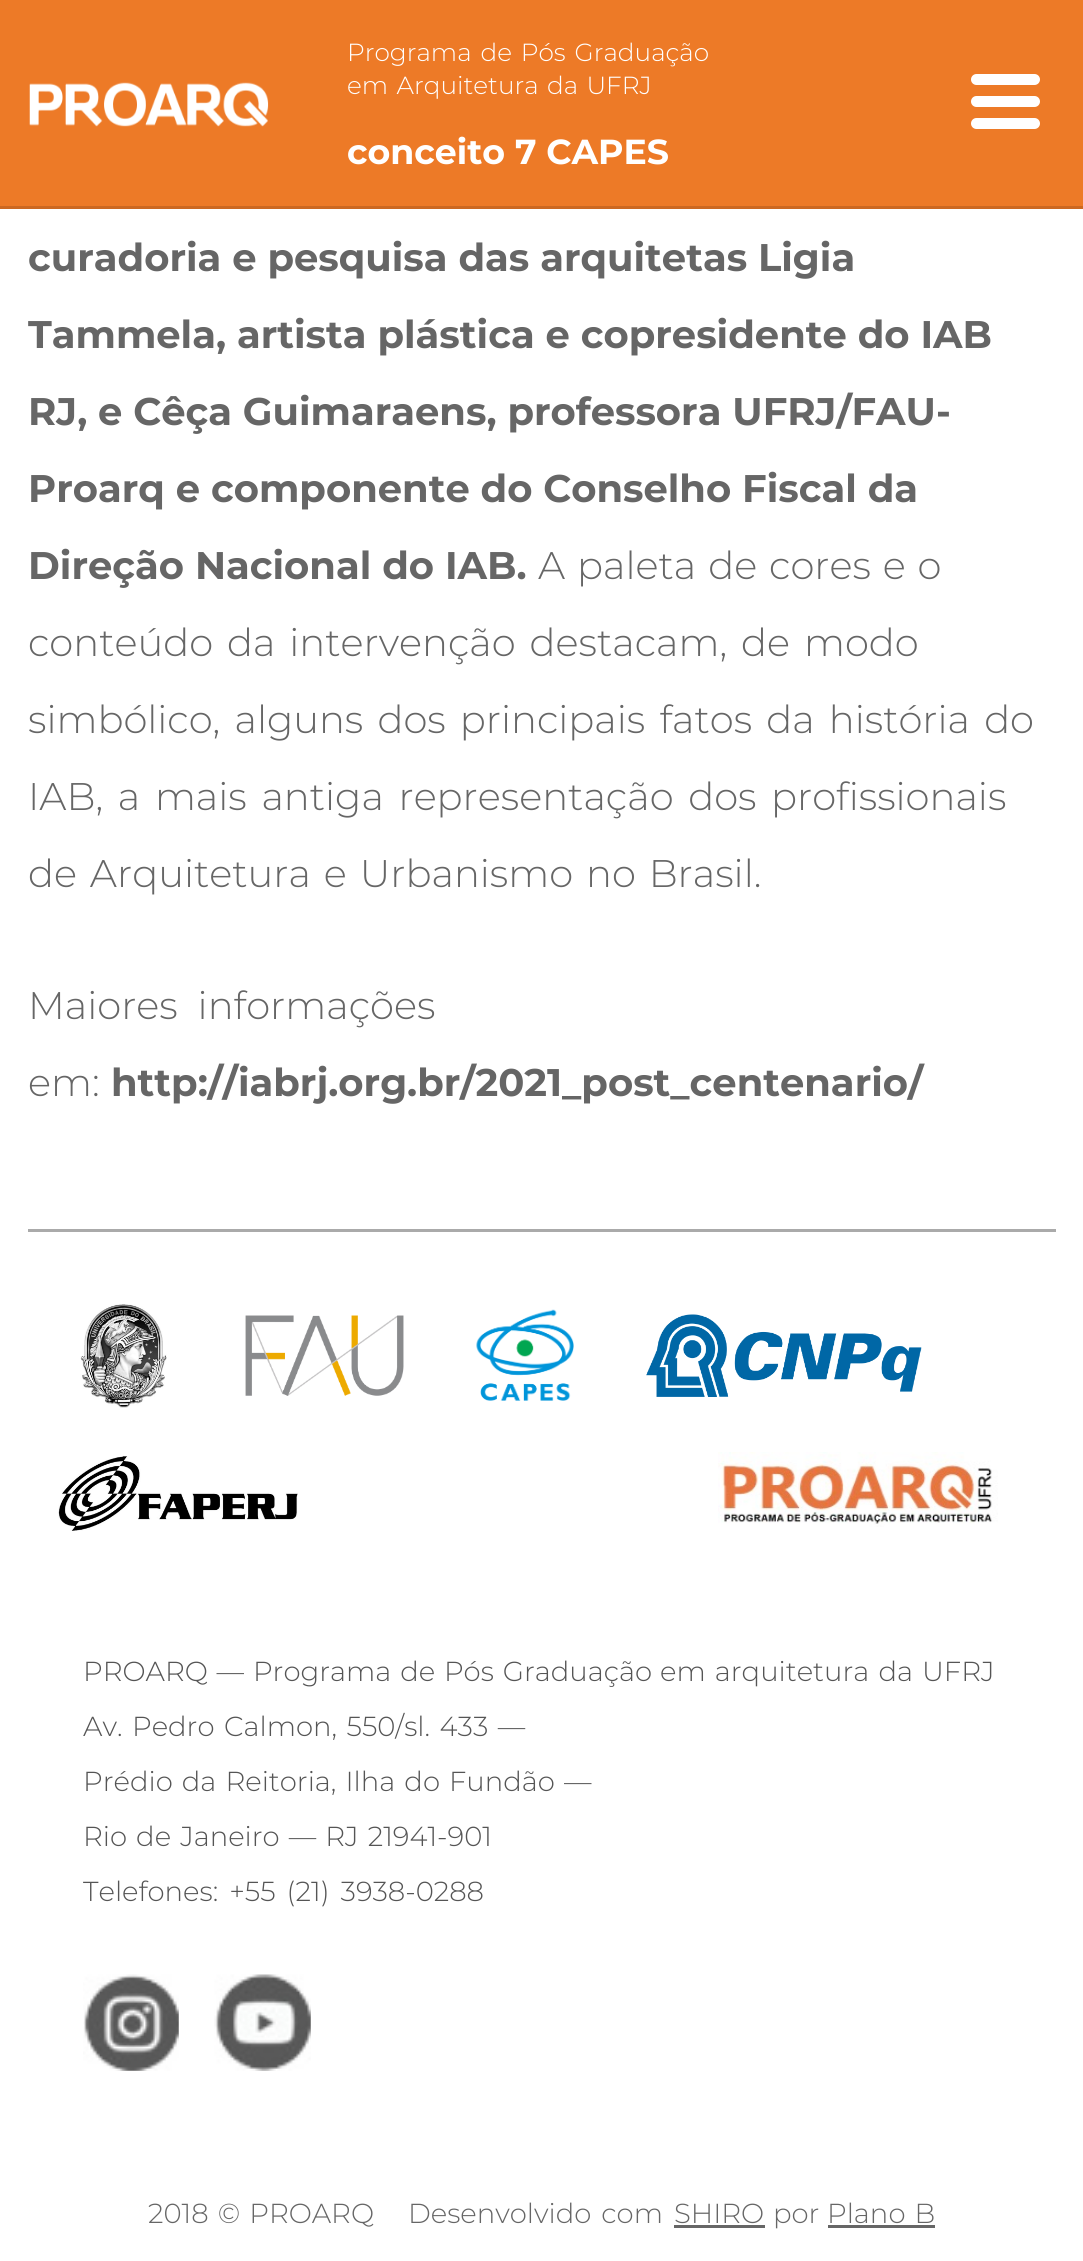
import math
import cairo

surface = cairo.ImageSurface(cairo.FORMAT_RGB24, 1083, 2261)
c = cairo.Context(surface)
options = cairo.FontOptions()
options.set_hint_metrics(cairo.HINT_METRICS_OFF)
options.set_hint_style(cairo.HINT_STYLE_NONE)
c.set_font_options(options)
c.set_miter_limit(4)
def C(code):
 c.set_source_rgb(*(v / 255 for v in bytes.fromhex(code[-6:])))
def F(family, size, italic, bold):
 c.select_font_face(family, cairo.FONT_SLANT_ITALIC if italic else cairo.FONT_SLANT_NORMAL, cairo.FONT_WEIGHT_BOLD if bold else cairo.FONT_WEIGHT_NORMAL)
 c.set_font_size(size)
def T(x, y, s):
 c.move_to(x, y)
 c.show_text(s)
def L(x, y, s, letter, word):
 c.move_to(x, y)
 for ch in s:
  c.show_text(ch)
  c.rel_move_to(letter + word * (ch == ' '), 0)
def R(x, y, w, h):
 c.rectangle(x, y, w, h)
 c.fill()
def Q(x, y, w, h, r):
 c.new_sub_path()
 for i, (u, v) in enumerate([(x + w - r, y + h - r), (x + r, y + h - r), (x + r, y + r), (x + w - r, y + r)]):
  c.arc(u, v, r, i * math.pi / 2, (i + 1) * math.pi / 2)
 c.close_path()
def I(path, x, y, w, h):
 c.save()
 c.set_source_surface(cairo.ImageSurface.create_from_png(path), x, y)
 c.rectangle(x, y, w, h)
 c.fill()
 c.restore()
C('ffffff')
c.paint()
C('ed7a27')
R(0,0,1083,206)
I('1.png',29,82,240,45)
C('cc6821')
R(0,206,1083,3)
F('Montserrat Light',24.75,0,0)
C('ffffff')
L(347,61,'Programa de Pós Graduação',0,2.5)
L(347,94,'em Arquitetura da UFRJ',0,2)
F('Montserrat',34.75,0,1)
T(347,164,'conceito 7 CAPES')
Q(971,96,69,11,5.5)
c.fill()
Q(971,74,69,11,5.5)
c.fill()
Q(971,118,69,11,5.5)
c.fill()
F('Montserrat',38.5,0,1)
C('666666')
T(28,271,'curadoria e pesquisa das arquitetas Ligia')
T(28,348,'Tammela, artista plástica e copresidente do IAB')
T(28,425,'RJ, e Cêça Guimaraens, professora UFRJ/FAU-')
T(28,502,'Proarq e componente do Conselho Fiscal da')
T(28,579,'Direção Nacional do IAB.')
F('Montserrat Light',38.5,0,0)
L(538,579,'A paleta de cores e o',0,2)
L(28,656,'conteúdo da intervenção destacam, de modo',0,4)
L(28,733,'simbólico, alguns dos principais fatos da história do',0,4.25)
L(28,810,'IAB, a mais antiga representação dos profissionais',0,4.75)
L(28,887,'de Arquitetura e Urbanismo no Brasil.',0,3)
L(28,1019,'Maiores informações',0,10)
T(28,1096,'em:')
F('Montserrat',38.5,0,1)
T(111,1096,'http://iabrj.org.br/2021_post_centenario/')
C('aaaaaa')
R(28,1229,1028,3)
I('2.png',80,1304,87,104)
I('3.png',245,1315,159,81)
I('4.png',476,1309,98,92)
I('5.png',646,1314,276,83)
I('6.png',58,1456,240,75)
I('7.png',718,1452,280,75)
F('Montserrat Light',27.5,0,0)
C('555555')
L(83,1681,'PROARQ — Programa de Pós Graduação',0,1.75)
L(660,1681,'em arquitetura da UFRJ',0,2)
L(83,1736,'Av. Pedro Calmon, 550/sl. 433 —',0,2.5)
L(83,1791,'Prédio da Reitoria, Ilha do Fundão —',0,2)
L(83,1846,'Rio de Janeiro — RJ 21941-901',0,2)
L(83,1901,'Telefones: +55 (21) 3938-0288',0,4)
I('8.png',83,1974,96,97)
I('9.png',214,1974,97,97)
C('666666')
L(148,2223,'2018 © PROARQ',0,2)
L(408,2223,'Desenvolvido com',0,3)
T(674,2223,'SHIRO')
R(674,2225,91,3)
T(773,2223,'por')
R(828,2225,107,3)
L(827,2223,'Plano B',0,2)
surface.write_to_png('o.png')
